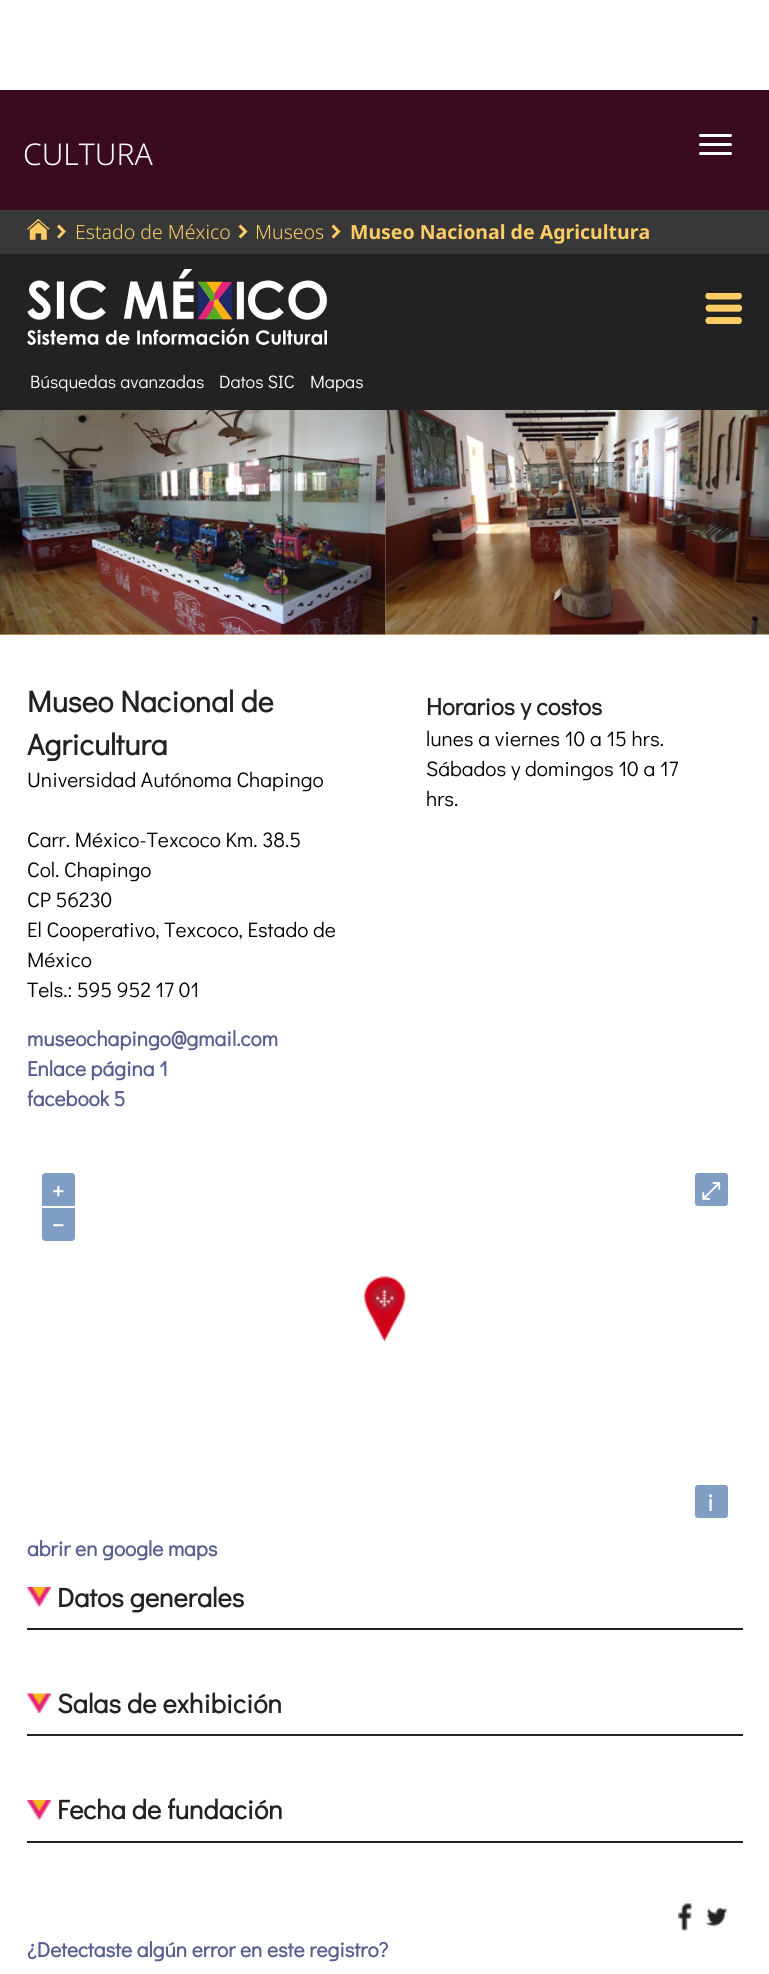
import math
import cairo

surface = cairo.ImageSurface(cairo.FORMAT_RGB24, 769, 1974)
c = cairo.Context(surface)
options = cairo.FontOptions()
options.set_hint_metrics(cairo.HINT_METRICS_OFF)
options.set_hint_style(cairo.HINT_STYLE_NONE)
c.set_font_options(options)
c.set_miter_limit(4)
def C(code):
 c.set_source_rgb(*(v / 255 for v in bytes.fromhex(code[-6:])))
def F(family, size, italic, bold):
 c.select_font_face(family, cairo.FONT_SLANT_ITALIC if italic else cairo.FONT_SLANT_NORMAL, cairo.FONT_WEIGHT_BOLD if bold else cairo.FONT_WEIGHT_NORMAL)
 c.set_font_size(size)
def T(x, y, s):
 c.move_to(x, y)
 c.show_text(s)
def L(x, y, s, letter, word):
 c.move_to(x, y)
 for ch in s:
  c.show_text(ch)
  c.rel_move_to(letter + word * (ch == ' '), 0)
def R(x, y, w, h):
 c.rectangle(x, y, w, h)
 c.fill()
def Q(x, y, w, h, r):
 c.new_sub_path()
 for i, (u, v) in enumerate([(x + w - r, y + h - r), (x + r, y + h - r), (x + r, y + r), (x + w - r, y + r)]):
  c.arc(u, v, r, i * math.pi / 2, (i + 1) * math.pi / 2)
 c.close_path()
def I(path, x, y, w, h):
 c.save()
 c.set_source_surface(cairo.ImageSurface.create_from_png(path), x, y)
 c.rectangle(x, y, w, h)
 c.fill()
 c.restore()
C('ffffff')
c.paint()
C('3a0b1f')
R(0,90,769,120)
F('Noto Sans Light',30,0,0)
C('ffffff')
T(23,165,'CULTURA')
Q(699,134,33,3,1.5)
c.fill()
Q(699,143,33,3,1.5)
c.fill()
Q(699,152,33,3,1.5)
c.fill()
C('373837')
R(0,210,769,44)
I('1.png',27,218,23,22)
I('2.png',57,224,9,15)
F('Noto Sans Light',19.5,0,0)
C('ffcc66')
T(75,239,'Estado de México')
I('3.png',238,224,10,15)
T(255,239,'Museos')
I('3.png',331,224,10,15)
F('Noto Sans',19.5,0,1)
T(350,239,'Museo Nacional de Agricultura')
C('212221')
R(0,254,769,156)
I('4.png',27,269,300,76)
I('5.png',705,293,38,31)
F('Didact Gothic',18,0,0)
C('ffffff')
T(30,388,'Búsquedas avanzadas')
T(219,388,'Datos SIC')
T(310,388,'Mapas')
gradient = cairo.LinearGradient(0,522,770,522)
gradient.add_color_stop_rgba(0,1,0.8,0.4,1)
gradient.add_color_stop_rgba(1,1,1,1,1)
c.set_source(gradient)
R(0,410,757,225)
I('6.png',0,410,386,225)
I('7.png',385,410,384,225)
F('Didact Gothic',30,0,1)
C('212221')
T(27,712,'Museo Nacional de')
T(27,755,'Agricultura')
F('Didact Gothic',21,0,0)
C('000000')
T(27,787,'Universidad Autónoma Chapingo')
T(27,847,'Carr. México-Texcoco Km. 38.5')
T(27,877,'Col. Chapingo')
T(27,907,'CP 56230')
T(27,937,'El Cooperativo, Texcoco, Estado de')
T(27,967,'México')
T(27,997,'Tels.: 595 952 17 01')
F('Didact Gothic',21,0,1)
C('575e8e')
T(27,1046,'museochapingo@gmail.com')
T(27,1076,'Enlace página 1')
T(27,1106,'facebook 5')
F('Didact Gothic',24,0,1)
C('212221')
T(426,715,'Horarios y costos')
F('Didact Gothic',21,0,0)
C('000000')
T(426,746,'lunes a viernes 10 a 15 hrs.')
T(426,776,'Sábados y domingos 10 a 17')
T(426,806,'hrs.')
C('809ec4')
c.new_path()
c.move_to(45,1173)
c.line_to(72,1173)
c.curve_to(73.5,1173,75,1174.5,75,1176)
c.line_to(75,1206)
c.line_to(42,1206)
c.line_to(42,1176)
c.curve_to(42,1174.5,43.5,1173,45,1173)
c.close_path()
c.fill()
F('Didact Gothic',24,0,1)
C('ffffff')
L(52,1199,'+',2,0)
C('809ec4')
c.new_path()
c.move_to(42,1208)
c.line_to(75,1208)
c.line_to(75,1238)
c.curve_to(75,1239.5,73.5,1241,72,1241)
c.line_to(45,1241)
c.curve_to(43.5,1241,42,1239.5,42,1238)
c.close_path()
c.fill()
C('ffffff')
L(52,1233,'−',2,0)
C('809ec4')
Q(695,1173,33,33,3)
c.fill()
F('FreeSerif',24,0,1)
C('ffffff')
L(701,1199,'⤢',2,0)
C('809ec4')
Q(695,1485,33,33,3)
c.fill()
F('Didact Gothic',24,0,1)
C('ffffff')
L(707,1511,'i',2,0)
I('8.png',364,1276,42,66)
F('Didact Gothic',21,0,1)
C('575e8e')
T(27,1556,'abrir en google maps')
I('9.png',27,1587,24,20)
F('Didact Gothic',27,0,1)
C('212221')
T(57,1607,'Datos generales')
R(27,1628,716,2)
I('10.png',27,1693,24,20)
T(57,1713,'Salas de exhibición')
R(27,1734,716,2)
I('9.png',27,1800,24,20)
T(57,1819,'Fecha de fundación')
R(27,1841,716,2)
I('11.png',678,1903,14,28)
I('12.png',706,1908,22,18)
F('Didact Gothic',21,0,1)
C('575e8e')
T(27,1957,'¿Detectaste algún error en este registro?')
surface.write_to_png('o.png')
